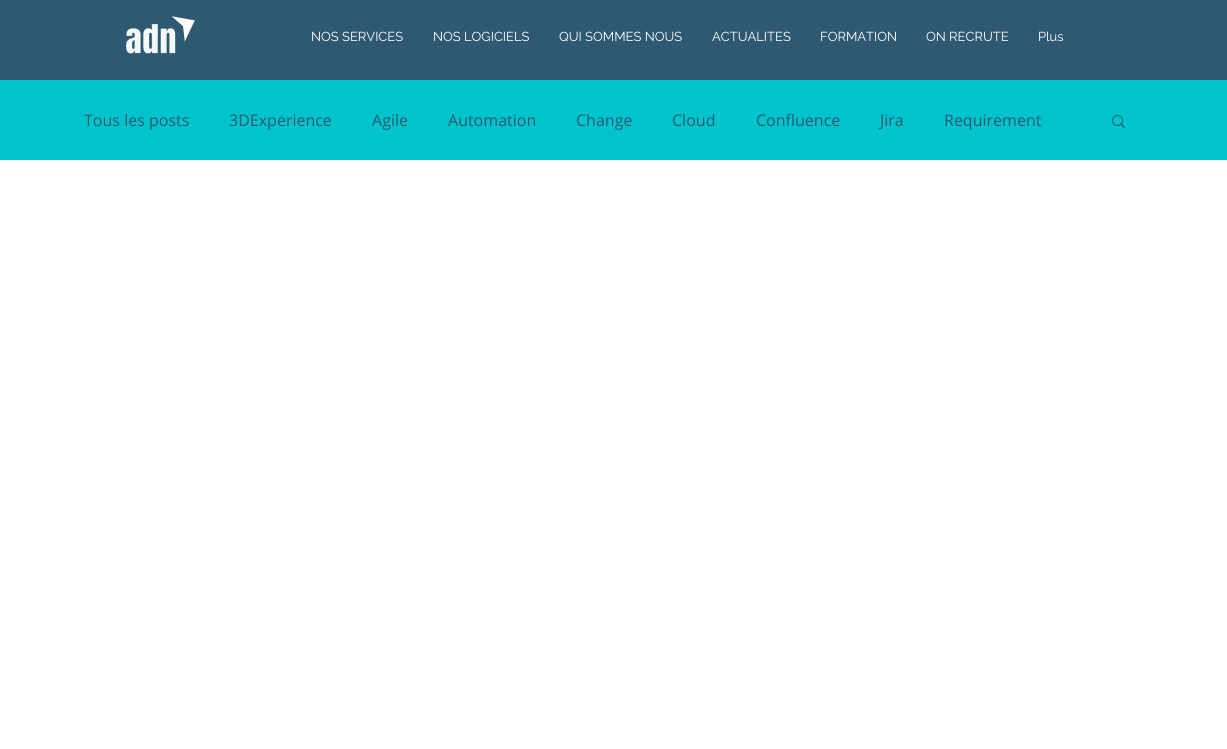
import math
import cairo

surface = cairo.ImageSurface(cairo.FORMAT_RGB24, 1227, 749)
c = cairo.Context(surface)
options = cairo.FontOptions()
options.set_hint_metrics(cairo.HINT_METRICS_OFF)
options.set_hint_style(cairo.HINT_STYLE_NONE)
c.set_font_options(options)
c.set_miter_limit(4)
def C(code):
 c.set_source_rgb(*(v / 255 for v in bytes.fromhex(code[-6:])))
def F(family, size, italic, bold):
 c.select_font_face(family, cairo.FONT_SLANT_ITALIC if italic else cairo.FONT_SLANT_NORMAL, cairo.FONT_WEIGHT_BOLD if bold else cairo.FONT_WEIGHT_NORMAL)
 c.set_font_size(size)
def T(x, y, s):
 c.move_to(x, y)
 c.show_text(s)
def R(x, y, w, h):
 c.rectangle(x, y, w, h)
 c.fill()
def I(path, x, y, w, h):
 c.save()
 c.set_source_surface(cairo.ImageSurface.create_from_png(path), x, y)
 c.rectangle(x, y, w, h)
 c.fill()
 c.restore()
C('ffffff')
c.paint()
C('2f5972')
R(0,0,1227,80)
I('1.png',126,16,69,38)
F('Raleway',13,0,0)
C('ffffff')
T(311,41,'NOS SERVICES')
T(433,41,'NOS LOGICIELS')
T(559,41,'QUI SOMMES NOUS')
T(712,41,'ACTUALITES')
T(820,41,'FORMATION')
T(926,41,'ON RECRUTE')
T(1038,41,'Plus')
C('00c4cc')
R(0,80,1227,80)
F('Open Sans',16,0,0)
C('2f5972')
T(84,126,'Tous les posts')
T(229,126,'3DExperience')
T(372,126,'Agile')
T(448,126,'Automation')
T(576,126,'Change')
T(672,126,'Cloud')
T(756,126,'Confluence')
T(880,126,'Jira')
T(944,126,'Requirement')
I('2.png',1112,115,13,13)
surface.write_to_png('o.png')
